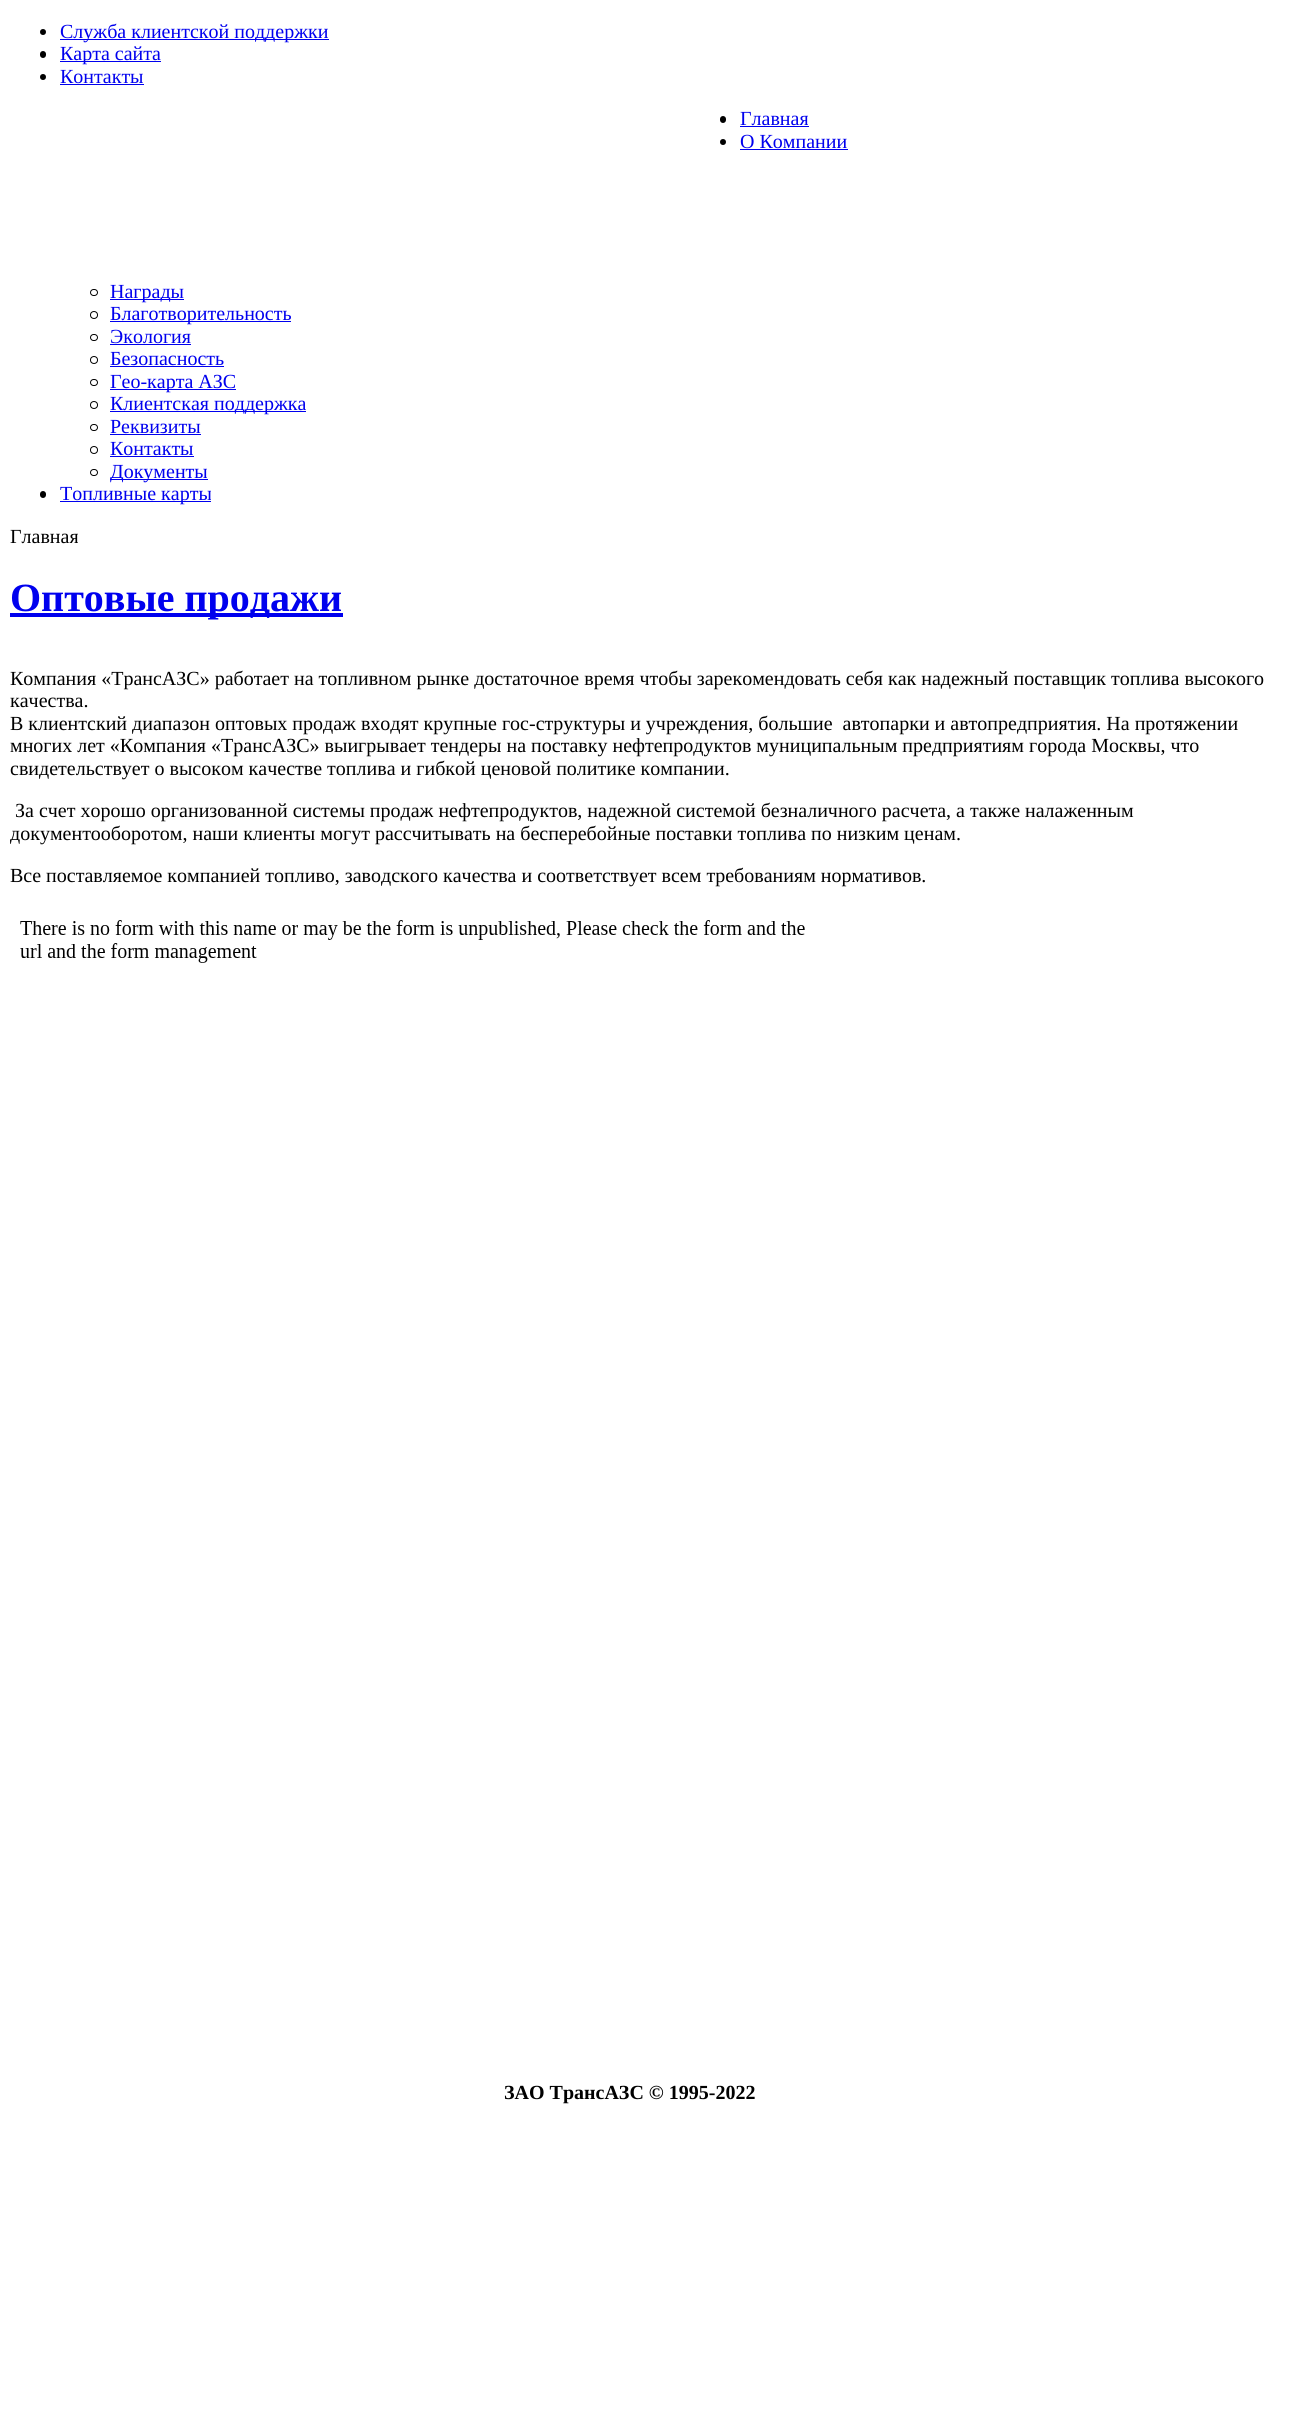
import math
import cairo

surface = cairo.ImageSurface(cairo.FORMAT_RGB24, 1290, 2425)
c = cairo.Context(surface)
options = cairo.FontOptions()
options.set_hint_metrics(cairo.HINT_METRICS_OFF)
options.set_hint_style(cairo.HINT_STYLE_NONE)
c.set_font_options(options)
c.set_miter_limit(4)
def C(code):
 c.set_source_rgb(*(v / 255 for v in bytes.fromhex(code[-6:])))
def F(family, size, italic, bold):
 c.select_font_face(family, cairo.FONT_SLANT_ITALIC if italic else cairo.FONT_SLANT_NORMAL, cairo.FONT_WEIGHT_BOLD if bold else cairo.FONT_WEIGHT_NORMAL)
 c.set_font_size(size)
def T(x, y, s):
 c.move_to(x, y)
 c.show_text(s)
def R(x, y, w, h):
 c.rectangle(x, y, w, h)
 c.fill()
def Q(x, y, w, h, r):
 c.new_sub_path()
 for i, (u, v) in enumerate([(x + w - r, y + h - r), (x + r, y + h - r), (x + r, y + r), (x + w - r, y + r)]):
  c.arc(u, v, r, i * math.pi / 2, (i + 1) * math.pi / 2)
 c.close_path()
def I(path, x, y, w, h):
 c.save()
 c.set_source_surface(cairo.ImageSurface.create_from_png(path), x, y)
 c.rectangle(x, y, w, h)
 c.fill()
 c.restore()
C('ffffff')
c.paint()
C('000000')
c.arc(43,32,3,0,2 * math.pi)
c.fill()
C('0000ee')
R(60,39,269,1)
F('Liberation Serif',20,0,0)
T(60,38,'Служба клиентской поддержки')
C('000000')
Q(40,51,6,7,3)
c.fill()
C('0000ee')
R(60,61,101,1)
T(60,60,'Карта сайта')
C('000000')
c.new_path()
c.arc(43,77,3,0,2 * math.pi)
c.fill()
C('0000ee')
T(60,83,'Контакты')
R(60,84,84,1)
C('000000')
Q(720,116,6,7,3)
c.fill()
C('0000ee')
T(740,125,'Главная')
R(740,126,69,1)
C('000000')
c.new_path()
c.arc(723,142,3,0,2 * math.pi)
c.fill()
C('0000ee')
T(740,148,'О Компании')
R(740,149,108,1)
Q(90.5,289.5,7,6,3)
C('000000')
c.set_line_width(1)
c.stroke()
C('0000ee')
R(110,299,74,1)
T(110,298,'Награды')
c.new_path()
c.arc(94,315,3.5,0,2 * math.pi)
C('000000')
c.stroke()
C('0000ee')
R(110,321,181,1)
T(110,320,'Благотворительность')
Q(90.5,334.5,7,6,3)
C('000000')
c.stroke()
C('0000ee')
T(110,343,'Экология')
R(110,344,81,1)
c.new_path()
c.arc(94,360,3.5,0,2 * math.pi)
C('000000')
c.stroke()
C('0000ee')
T(110,365,'Безопасность')
R(110,366,114,1)
Q(90.5,379.5,7,6,3)
C('000000')
c.stroke()
C('0000ee')
R(110,389,126,1)
T(110,388,'Гео-карта АЗС')
c.new_path()
c.arc(94,405,3.5,0,2 * math.pi)
C('000000')
c.stroke()
C('0000ee')
R(110,411,196,1)
T(110,410,'Клиентская поддержка')
Q(90.5,424.5,7,6,3)
C('000000')
c.stroke()
C('0000ee')
T(110,433,'Реквизиты')
R(110,434,91,1)
c.new_path()
c.arc(94,450,3.5,0,2 * math.pi)
C('000000')
c.stroke()
C('0000ee')
T(110,455,'Контакты')
R(110,456,84,1)
Q(90.5,469.5,7,6,3)
C('000000')
c.stroke()
C('0000ee')
R(110,479,98,1)
T(110,478,'Документы')
C('000000')
Q(40,491,6,7,3)
c.fill()
C('0000ee')
R(60,501,151,1)
T(60,500,'Топливные карты')
C('000000')
T(10,543,'Главная')
C('0000ee')
R(10,613,333,4)
F('Liberation Serif',40,0,1)
T(10,611,'Оптовые продажи')
F('Liberation Serif',20,0,0)
C('000000')
T(10,685,'Компания «TрансАЗС» работает на топливном рынке достаточное время чтобы зарекомендовать себя как надежный поставщик топлива высокого')
T(10,707,'качества.')
T(10,730,'В клиентский диапазон оптовых продаж входят крупные гос-структуры и учреждения, большие  автопарки и автопредприятия. На протяжении')
T(10,752,'многих лет «Компания «TрансАЗС» выигрывает тендеры на поставку нефтепродуктов муниципальным предприятиям города Москвы, что')
T(10,775,'свидетельствует о высоком качестве топлива и гибкой ценовой политике компании.')
T(15,817,'За счет хорошо организованной системы продаж нефтепродуктов, надежной системой безналичного расчета, а также налаженным')
T(10,840,'документооборотом, наши клиенты могут рассчитывать на бесперебойные поставки топлива по низким ценам.')
T(10,882,'Все поставляемое компанией топливо, заводского качества и соответствует всем требованиям нормативов.')
I('1.png',20,920,785,43)
F('Liberation Serif',20,0,1)
T(504,2099,'ЗАО ТрансАЗС © 1995-2022')
surface.write_to_png('o.png')
